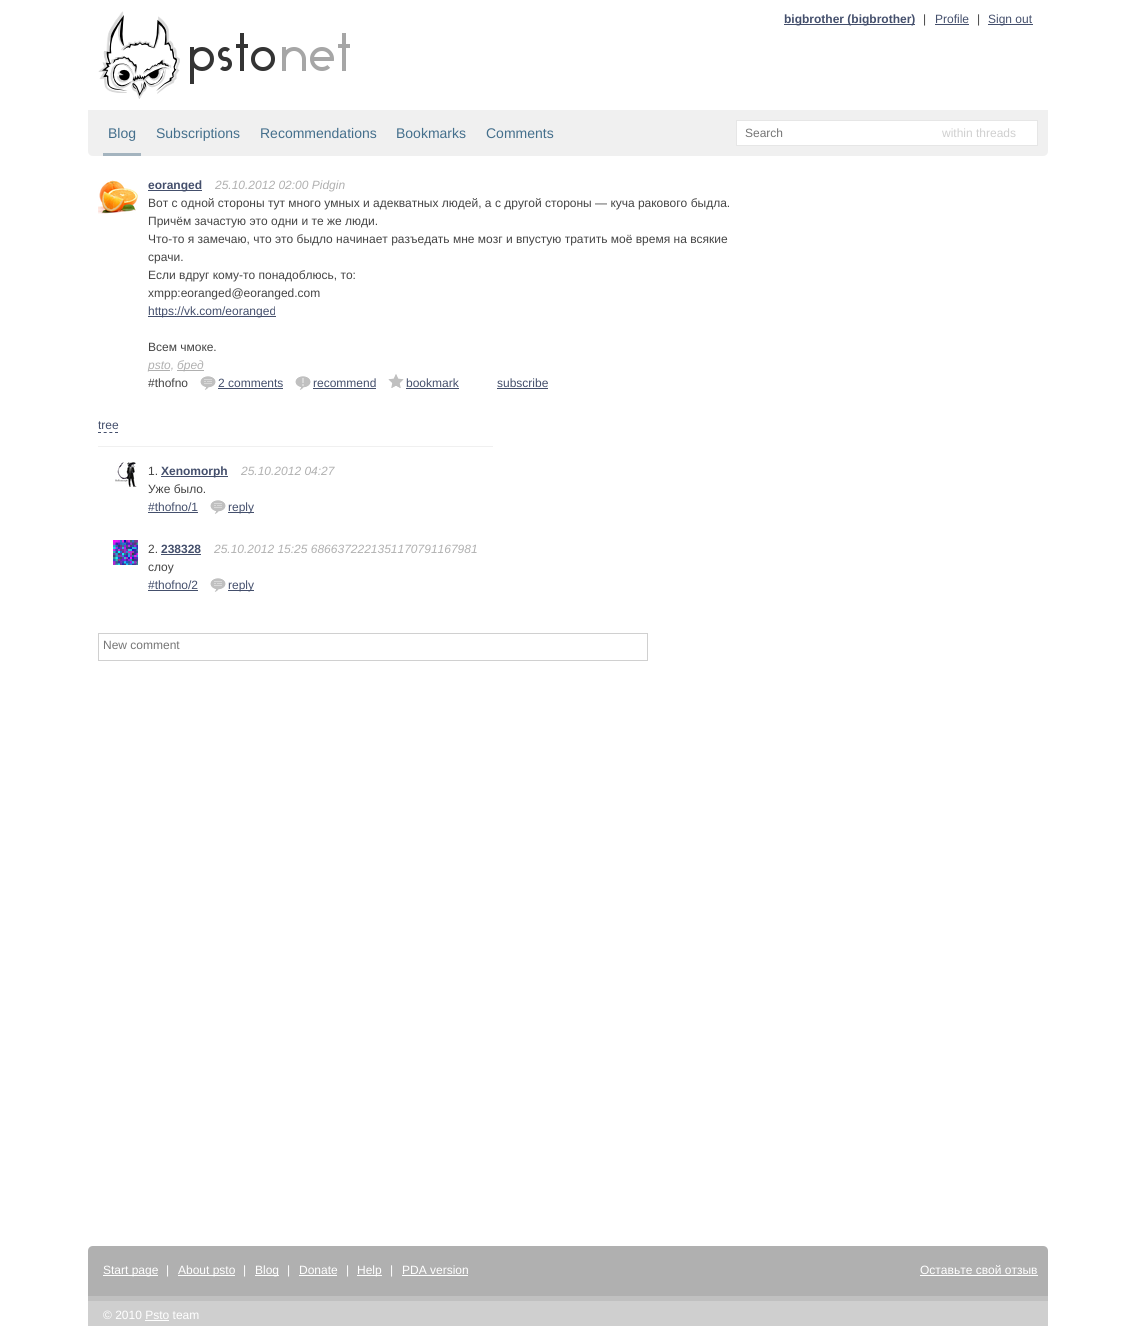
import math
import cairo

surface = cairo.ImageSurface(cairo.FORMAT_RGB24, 1135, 1326)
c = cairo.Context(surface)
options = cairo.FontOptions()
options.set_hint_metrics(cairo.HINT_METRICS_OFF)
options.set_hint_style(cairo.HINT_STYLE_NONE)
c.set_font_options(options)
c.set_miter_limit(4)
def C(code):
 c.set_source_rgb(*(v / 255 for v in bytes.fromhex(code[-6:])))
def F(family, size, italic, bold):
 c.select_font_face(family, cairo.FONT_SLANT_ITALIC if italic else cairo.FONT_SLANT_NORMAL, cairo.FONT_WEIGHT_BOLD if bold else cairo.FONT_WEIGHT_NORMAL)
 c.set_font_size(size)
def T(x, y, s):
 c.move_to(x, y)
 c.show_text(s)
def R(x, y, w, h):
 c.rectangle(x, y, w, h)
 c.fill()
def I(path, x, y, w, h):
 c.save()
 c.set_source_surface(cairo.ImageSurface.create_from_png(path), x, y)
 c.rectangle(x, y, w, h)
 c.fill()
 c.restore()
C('ffffff')
c.paint()
I('1.png',98,11,252,88)
C('444f6c')
R(784,24,131,1)
F('Liberation Sans',12,0,1)
T(784,23,'bigbrother (bigbrother)')
F('Liberation Sans',12,0,0)
C('444444')
T(923,23,'|')
C('444f6c')
T(935,23,'Profile')
R(935,24,34,1)
C('444444')
T(977,23,'|')
C('444f6c')
R(988,24,45,1)
T(988,23,'Sign out')
C('f0f0f0')
c.new_path()
c.move_to(88,110)
c.line_to(1048,110)
c.line_to(1048,151)
c.curve_to(1048,154,1046,156,1043,156)
c.line_to(93,156)
c.curve_to(90,156,88,154,88,151)
c.close_path()
c.fill()
C('a4b4bf')
R(103,153,38,3)
F('Liberation Sans',14,0,0)
C('446f8c')
T(108,138,'Blog')
T(156,138,'Subscriptions')
T(260,138,'Recommendations')
T(396,138,'Bookmarks')
T(486,138,'Comments')
C('ffffff')
c.rectangle(736.5,120.5,301,25)
c.fill_preserve()
C('e6e6e6')
c.set_line_width(1)
c.stroke()
F('Liberation Sans',12,0,0)
C('757575')
T(745,137,'Search')
C('cfcfcf')
T(942,137,'within threads')
I('2.png',98,180,40,34)
C('444f6c')
R(148,190,54,1)
F('Liberation Sans',12,0,1)
T(148,189,'eoranged')
F('Liberation Sans',12,1,0)
C('b0b0b0')
T(215,189,'25.10.2012 02:00 Pidgin')
F('Liberation Sans',12,0,0)
C('444444')
T(148,207,'Вот с одной стороны тут много умных и адекватных людей, а с другой стороны — куча ракового быдла.')
T(148,225,'Причём зачастую это одни и те же люди.')
T(148,243,'Что-то я замечаю, что это быдло начинает разъедать мне мозг и впустую тратить моё время на всякие')
T(148,261,'срачи.')
T(148,279,'Если вдруг кому-то понадоблюсь, то:')
T(148,297,'xmpp:eoranged@eoranged.com')
C('444f6c')
R(148,316,128,1)
T(148,315,'https://vk.com/eoranged')
C('444444')
T(148,351,'Всем чмоке.')
C('b0b0b0')
R(148,370,22,1)
F('Liberation Sans',12,1,0)
T(148,369,'psto,')
R(177,370,27,1)
T(177,369,'бред')
F('Liberation Sans',12,0,0)
C('444444')
T(148,387,'#thofno')
I('3.png',200,376,16,14)
C('444f6c')
T(218,387,'2 comments')
R(218,388,65,1)
I('4.png',295,376,16,14)
T(313,387,'recommend')
R(313,388,63,1)
I('5.png',388,374,16,14)
T(406,387,'bookmark')
R(406,388,53,1)
T(497,387,'subscribe')
R(497,388,51,1)
T(98,429,'tree')
c.new_path()
c.move_to(98,432.5)
c.line_to(118,432.5)
c.set_dash([3,2.67])
c.stroke()
C('f0f0f0')
R(98,446,395,1)
I('6.png',115,462,22,25)
C('444444')
T(148,475,'1.')
C('444f6c')
R(161,476,67,1)
F('Liberation Sans',12,0,1)
T(161,475,'Xenomorph')
F('Liberation Sans',12,1,0)
C('b0b0b0')
T(241,475,'25.10.2012 04:27')
F('Liberation Sans',12,0,0)
C('444444')
T(148,493,'Уже было.')
C('444f6c')
T(148,511,'#thofno/1')
R(148,512,50,1)
I('3.png',210,500,16,14)
R(228,512,26,1)
T(228,511,'reply')
I('7.png',113,540,25,25)
C('444444')
T(148,553,'2.')
F('Liberation Sans',12,0,1)
C('444f6c')
T(161,553,'238328')
R(161,554,40,1)
F('Liberation Sans',12,1,0)
C('b0b0b0')
T(214,553,'25.10.2012 15:25 6866372221351170791167981')
F('Liberation Sans',12,0,0)
C('444444')
T(148,571,'слоу')
C('444f6c')
T(148,589,'#thofno/2')
R(148,590,50,1)
I('3.png',210,578,16,14)
R(228,590,26,1)
T(228,589,'reply')
c.rectangle(98.5,633.5,549,27)
C('d0d0d0')
c.set_dash([])
c.stroke()
C('757575')
T(103,649,'New comment')
C('b0b0b0')
c.new_path()
c.move_to(93,1246)
c.line_to(1043,1246)
c.curve_to(1046,1246,1048,1248,1048,1251)
c.line_to(1048,1296)
c.line_to(88,1296)
c.line_to(88,1251)
c.curve_to(88,1248,90,1246,93,1246)
c.close_path()
c.fill()
C('ffffff')
R(103,1275,55,1)
T(103,1274,'Start page')
T(166,1274,'|')
R(178,1275,57,1)
T(178,1274,'About psto')
T(243,1274,'|')
R(255,1275,24,1)
T(255,1274,'Blog')
T(287,1274,'|')
T(299,1274,'Donate')
R(299,1275,38,1)
T(346,1274,'|')
R(357,1275,25,1)
T(357,1274,'Help')
T(390,1274,'|')
T(402,1274,'PDA version')
R(402,1275,66,1)
T(920,1274,'Оставьте свой отзыв')
R(920,1275,118,1)
C('cfcfcf')
R(88,1301,960,25)
C('c0c0c0')
R(88,1296,960,5)
C('ffffff')
T(103,1319,'© 2010 Psto team')
R(145,1320,24,1)
surface.write_to_png('o.png')
